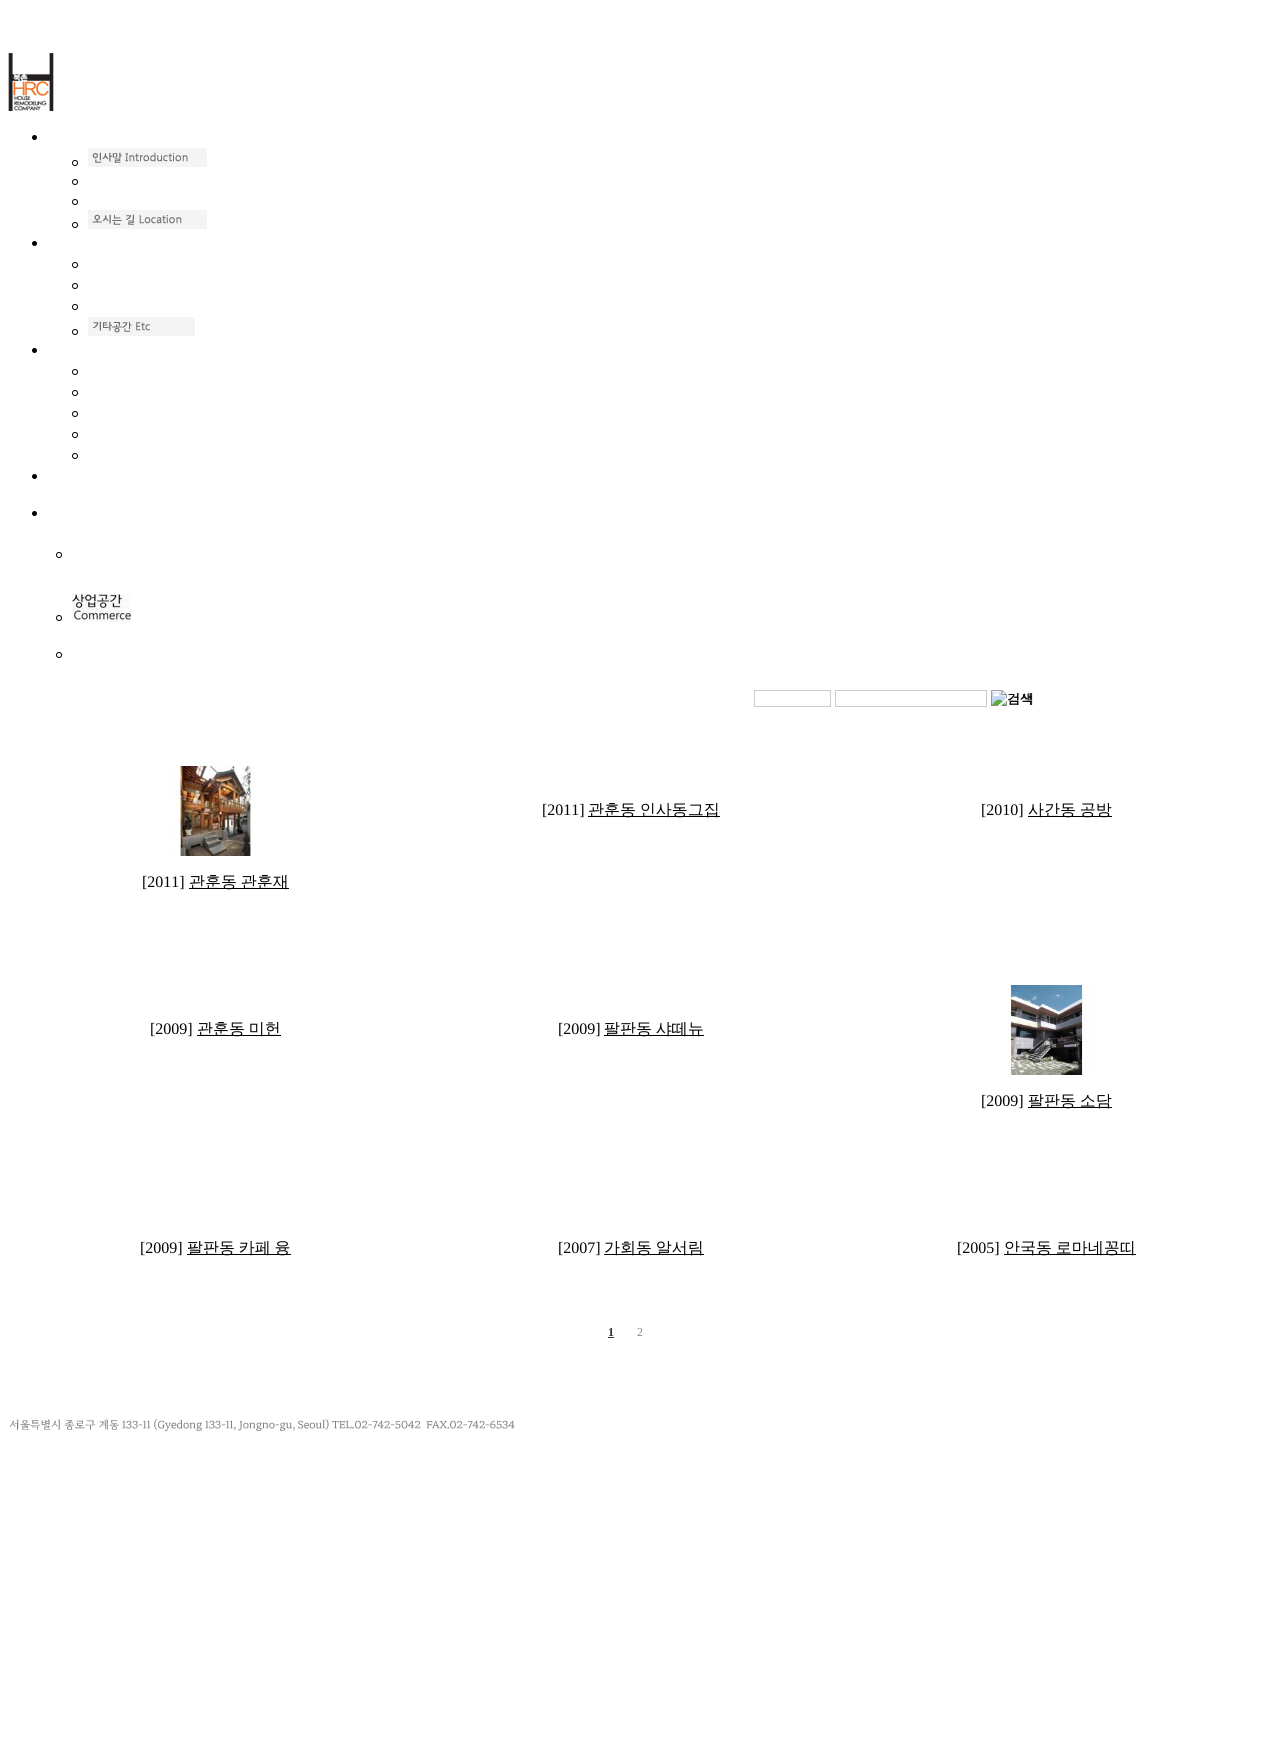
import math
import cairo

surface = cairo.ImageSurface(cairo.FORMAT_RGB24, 1262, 1759)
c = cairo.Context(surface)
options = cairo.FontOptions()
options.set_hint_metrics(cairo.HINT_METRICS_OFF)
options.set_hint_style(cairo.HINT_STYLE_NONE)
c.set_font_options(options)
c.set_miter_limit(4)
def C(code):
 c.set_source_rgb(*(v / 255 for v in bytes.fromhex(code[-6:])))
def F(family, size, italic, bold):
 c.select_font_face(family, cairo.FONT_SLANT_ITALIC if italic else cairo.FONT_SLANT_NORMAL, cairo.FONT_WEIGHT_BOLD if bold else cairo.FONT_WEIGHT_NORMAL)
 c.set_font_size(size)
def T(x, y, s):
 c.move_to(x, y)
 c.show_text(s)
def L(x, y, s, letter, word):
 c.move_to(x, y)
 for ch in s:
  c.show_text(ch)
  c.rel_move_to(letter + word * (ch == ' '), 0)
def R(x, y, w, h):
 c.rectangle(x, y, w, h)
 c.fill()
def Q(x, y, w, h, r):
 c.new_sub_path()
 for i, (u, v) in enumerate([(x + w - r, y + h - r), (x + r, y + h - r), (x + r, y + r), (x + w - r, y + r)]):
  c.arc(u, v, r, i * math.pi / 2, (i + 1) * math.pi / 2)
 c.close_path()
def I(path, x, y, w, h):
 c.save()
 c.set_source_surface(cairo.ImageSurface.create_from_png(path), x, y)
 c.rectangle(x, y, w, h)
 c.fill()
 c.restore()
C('ffffff')
c.paint()
I('1.png',8,53,46,58)
C('000000')
c.arc(34.5,137.5,2.5,0,2 * math.pi)
c.fill()
c.arc(75,163,2.5,0,2 * math.pi)
c.set_line_width(1)
c.stroke()
I('2.png',88,148,119,19)
c.arc(75,182,2.5,0,2 * math.pi)
c.stroke()
c.arc(75,202,2.5,0,2 * math.pi)
c.stroke()
c.arc(75,225,2.5,0,2 * math.pi)
c.stroke()
I('3.png',88,210,119,19)
c.arc(34.5,243.5,2.5,0,2 * math.pi)
c.fill()
c.arc(75,265,2.5,0,2 * math.pi)
c.stroke()
c.arc(75,286,2.5,0,2 * math.pi)
c.stroke()
c.arc(75,307,2.5,0,2 * math.pi)
c.stroke()
c.arc(75,332,2.5,0,2 * math.pi)
c.stroke()
I('4.png',88,317,107,19)
c.arc(34.5,350.5,2.5,0,2 * math.pi)
c.fill()
c.arc(75,372,2.5,0,2 * math.pi)
c.stroke()
c.arc(75,393,2.5,0,2 * math.pi)
c.stroke()
c.arc(75,414,2.5,0,2 * math.pi)
c.stroke()
c.arc(75,435,2.5,0,2 * math.pi)
c.stroke()
c.arc(75,456,2.5,0,2 * math.pi)
c.stroke()
c.arc(34.5,476.5,2.5,0,2 * math.pi)
c.fill()
c.arc(34.5,513.5,2.5,0,2 * math.pi)
c.fill()
c.arc(59,555,2.5,0,2 * math.pi)
c.stroke()
c.arc(59,618,2.5,0,2 * math.pi)
c.stroke()
I('5.png',72,594,59,28)
c.arc(59,655,2.5,0,2 * math.pi)
c.stroke()
c.rectangle(754.5,690.5,76,16)
C('cccccc')
c.stroke()
Q(754.5,690.5,76,16,1.5)
c.stroke()
c.rectangle(835.5,690.5,151,16)
c.stroke()
I('6.png',991,690,42,16)
F('WenQuanYi Zen Hei Medium',13,0,0)
C('000000')
T(1007,703,'검색')
F('Liberation Serif',16,0,0)
T(542,815,'[2011]')
R(588,816,132,1)
F('WenQuanYi Zen Hei Medium',16,0,0)
L(588,815,'관훈동 인사동그집',0,-1)
F('Liberation Serif',16,0,0)
T(981,815,'[2010]')
R(1028,816,84,1)
F('WenQuanYi Zen Hei Medium',16,0,0)
L(1028,815,'사간동 공방',0,-1)
I('7.png',167,766,88,90)
F('Liberation Serif',16,0,0)
T(142,887,'[2011]')
R(189,888,100,1)
F('WenQuanYi Zen Hei Medium',16,0,0)
L(189,887,'관훈동 관훈재',0,-1)
F('Liberation Serif',16,0,0)
T(150,1034,'[2009]')
R(197,1035,84,1)
F('WenQuanYi Zen Hei Medium',16,0,0)
L(197,1034,'관훈동 미헌',0,-1)
F('Liberation Serif',16,0,0)
T(558,1034,'[2009]')
R(604,1035,100,1)
F('WenQuanYi Zen Hei Medium',16,0,0)
L(604,1034,'팔판동 샤떼뉴',0,-1)
I('8.png',1008,985,83,90)
F('Liberation Serif',16,0,0)
T(981,1106,'[2009]')
R(1028,1107,84,1)
F('WenQuanYi Zen Hei Medium',16,0,0)
L(1028,1106,'팔판동 소담',0,-1)
F('Liberation Serif',16,0,0)
T(140,1253,'[2009]')
R(187,1254,104,1)
F('WenQuanYi Zen Hei Medium',16,0,0)
L(187,1253,'팔판동 카페 융',0,-1)
F('Liberation Serif',16,0,0)
T(558,1253,'[2007]')
R(604,1254,100,1)
F('WenQuanYi Zen Hei Medium',16,0,0)
L(604,1253,'가회동 알서림',0,-1)
F('Liberation Serif',16,0,0)
T(957,1253,'[2005]')
R(1004,1254,132,1)
F('WenQuanYi Zen Hei Medium',16,0,0)
L(1004,1253,'안국동 로마네꽁띠',0,-1)
F('Liberation Serif',12,0,1)
C('333333')
T(608,1336,'1')
R(608,1337,6,1)
F('Liberation Serif',12,0,0)
C('888888')
T(637,1336,'2')
I('9.png',9,1419,506,12)
surface.write_to_png('o.png')
